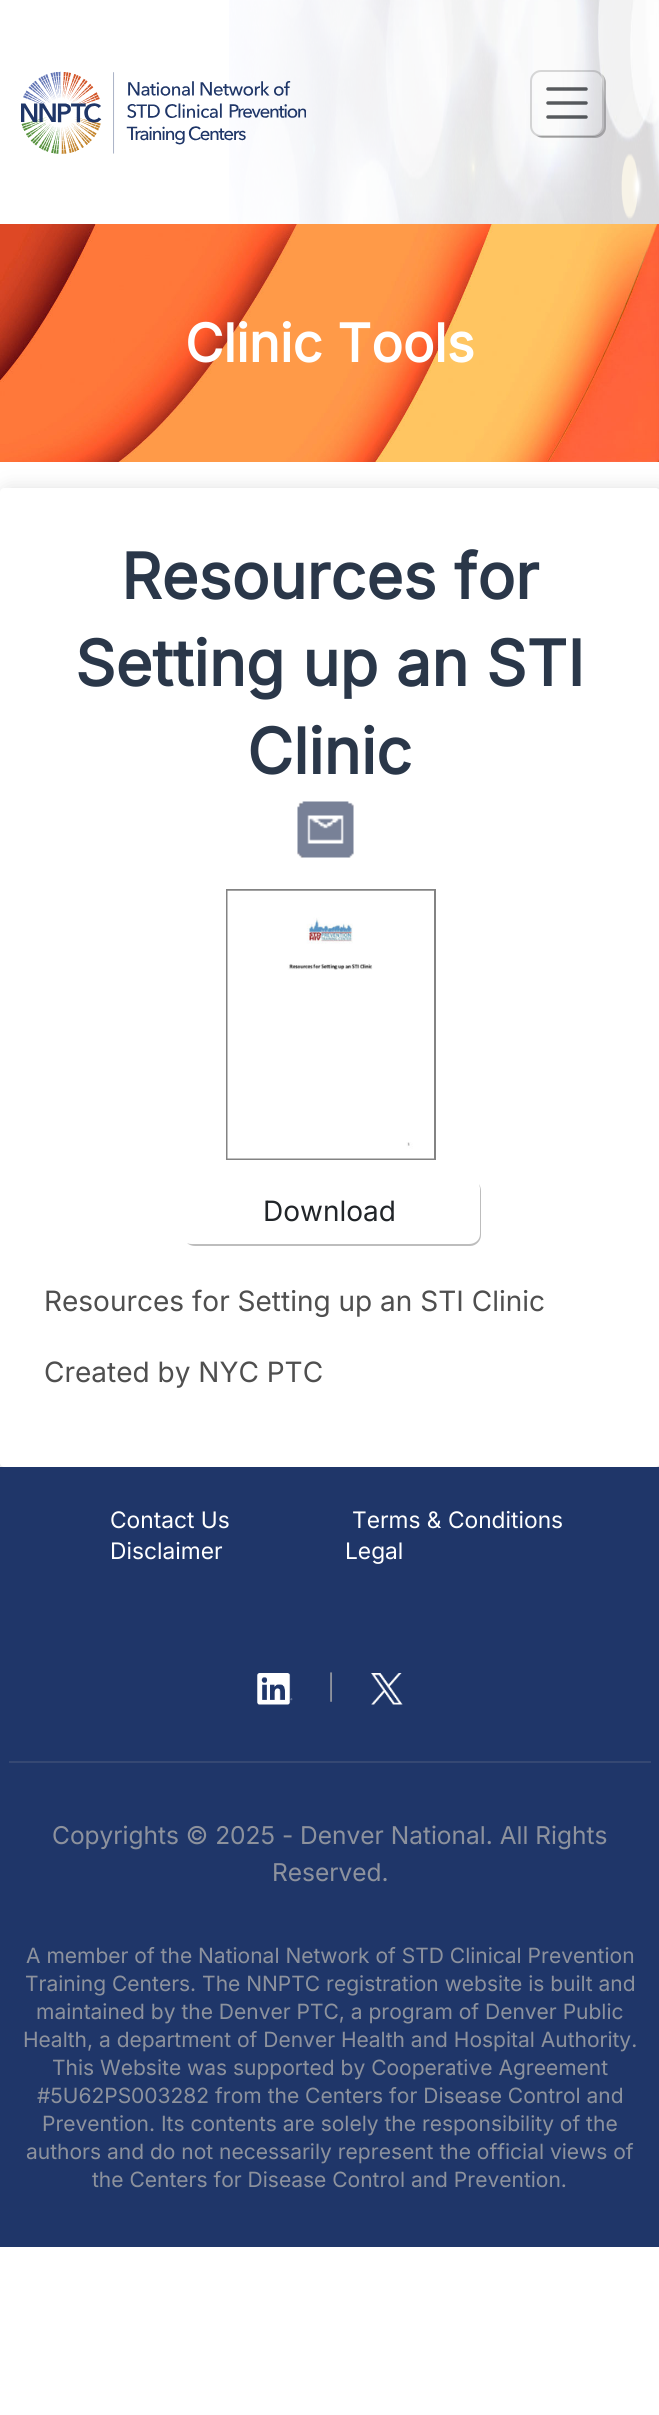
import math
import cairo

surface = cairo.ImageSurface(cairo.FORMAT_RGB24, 659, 2415)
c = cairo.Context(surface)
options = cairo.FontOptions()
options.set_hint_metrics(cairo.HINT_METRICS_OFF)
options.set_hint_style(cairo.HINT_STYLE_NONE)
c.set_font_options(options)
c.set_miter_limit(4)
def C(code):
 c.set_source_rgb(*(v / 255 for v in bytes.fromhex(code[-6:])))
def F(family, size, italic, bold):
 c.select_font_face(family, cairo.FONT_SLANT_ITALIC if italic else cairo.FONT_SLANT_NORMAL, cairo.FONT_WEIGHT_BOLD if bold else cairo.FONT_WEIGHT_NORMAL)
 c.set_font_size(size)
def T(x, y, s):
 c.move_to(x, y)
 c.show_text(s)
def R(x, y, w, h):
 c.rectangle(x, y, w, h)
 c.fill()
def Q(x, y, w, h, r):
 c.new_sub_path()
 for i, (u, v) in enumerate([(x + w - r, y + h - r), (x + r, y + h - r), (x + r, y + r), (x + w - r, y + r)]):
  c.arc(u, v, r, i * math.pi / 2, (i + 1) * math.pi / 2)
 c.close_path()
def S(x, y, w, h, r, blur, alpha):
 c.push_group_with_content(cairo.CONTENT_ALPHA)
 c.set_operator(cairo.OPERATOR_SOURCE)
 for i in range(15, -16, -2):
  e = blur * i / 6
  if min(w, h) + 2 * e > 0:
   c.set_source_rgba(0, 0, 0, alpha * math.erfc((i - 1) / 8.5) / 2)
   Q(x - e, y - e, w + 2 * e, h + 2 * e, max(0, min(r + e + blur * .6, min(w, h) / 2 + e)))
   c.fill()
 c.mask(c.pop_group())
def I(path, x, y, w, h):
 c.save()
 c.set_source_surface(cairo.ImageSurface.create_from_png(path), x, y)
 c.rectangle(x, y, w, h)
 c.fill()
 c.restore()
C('ffffff')
c.paint()
I('1.png',229,0,430,224)
I('2.png',21,71,285,83)
c.set_source_rgba(0,0,0,0.26)
c.new_path()
c.move_to(536,135)
c.curve_to(538,137,540,138,543,138)
c.line_to(595,138)
c.curve_to(601,138,606,133,606,127)
c.line_to(606,83)
c.curve_to(606,79,604,76,602,74)
c.curve_to(603,76,604,78,604,80)
c.line_to(604,126)
c.curve_to(604,132,599,136,593,136)
c.line_to(541,136)
c.curve_to(539,136,537,136,536,135)
c.close_path()
c.fill()
Q(531,71,72,65,10)
c.set_source_rgba(0,0,0,0.15)
c.stroke()
c.new_path()
c.move_to(548,89)
c.line_to(586,89)
c.move_to(548,103)
c.line_to(586,103)
c.move_to(548,117)
c.line_to(586,117)
c.set_source_rgba(0.129,0.145,0.161,0.75)
c.set_line_width(3.5)
c.set_line_cap(cairo.LINE_CAP_ROUND)
c.stroke()
I('3.png',0,224,659,238)
F('Inter',52.5,0,1)
C('ffffff')
T(185,362,'Clinic Tools')
c.save()
c.set_fill_rule(cairo.FILL_RULE_EVEN_ODD)
c.new_path()
c.move_to(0,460)
c.line_to(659,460)
c.line_to(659,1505)
c.line_to(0,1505)
c.close_path()
c.move_to(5,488)
c.line_to(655,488)
c.curve_to(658,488,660,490,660,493)
c.line_to(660,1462)
c.curve_to(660,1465,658,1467,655,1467)
c.line_to(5,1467)
c.curve_to(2,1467,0,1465,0,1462)
c.line_to(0,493)
c.curve_to(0,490,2,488,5,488)
c.close_path()
c.clip()
C('e0e0e0')
S(0,488,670,989,11,9,1)
c.restore()
F('Inter',63,0,1)
C('2a3749')
T(121,599,'Resources for')
T(75,686,'Setting up an STI')
T(247,774,'Clinic')
I('4.png',297,801,57,57)
c.rectangle(227,890,208,269)
C('838383')
c.set_line_width(2)
c.set_line_cap(cairo.LINE_CAP_BUTT)
c.stroke()
I('5.png',227,890,207,269)
C('bdbdbd')
c.new_path()
c.move_to(187,1243)
c.curve_to(189,1245,192,1246,195,1246)
c.line_to(470,1246)
c.curve_to(476,1246,481,1241,481,1235)
c.line_to(481,1191)
c.curve_to(481,1188,480,1186,479,1184)
c.line_to(480,1188)
c.line_to(480,1234)
c.curve_to(480,1240,475,1244,469,1244)
c.line_to(192,1244)
c.curve_to(191,1244,189,1244,187,1243)
c.close_path()
c.fill()
F('Inter',28,0,0)
C('212529')
T(263,1221,'Download')
C('4f4f4f')
T(44,1311,'Resources for Setting up an STI Clinic')
T(44,1382,'Created by NYC PTC')
C('1f3669')
R(0,1467,659,780)
F('Inter',22.75,0,0)
C('ffffff')
T(110,1528,'Contact Us')
T(352,1528,'Terms & Conditions')
T(110,1559,'Disclaimer')
T(345,1559,'Legal')
I('6.png',257,1673,36,32)
F('Inter',24.5,0,0)
C('8d929d')
T(327,1696,'|')
I('7.png',371,1673,32,32)
C('354873')
R(9,1761,642,2)
C('8d929d')
T(52,1844,'Copyrights © 2025 - Denver National. All Rights')
T(272,1881,'Reserved.')
F('Inter',21,0,0)
T(26,1963,'A member of the National Network of STD Clinical Prevention')
T(25,1991,'Training Centers. The NNPTC registration website is built and')
T(36,2019,'maintained by the Denver PTC, a program of Denver Public')
T(23,2047,'Health, a department of Denver Health and Hospital Authority.')
T(52,2075,'This Website was supported by Cooperative Agreement')
T(37,2103,'#5U62PS003282 from the Centers for Disease Control and')
T(42,2131,'Prevention. Its contents are solely the responsibility of the')
T(26,2159,'authors and do not necessarily represent the official views of')
T(92,2187,'the Centers for Disease Control and Prevention.')
surface.write_to_png('o.png')
